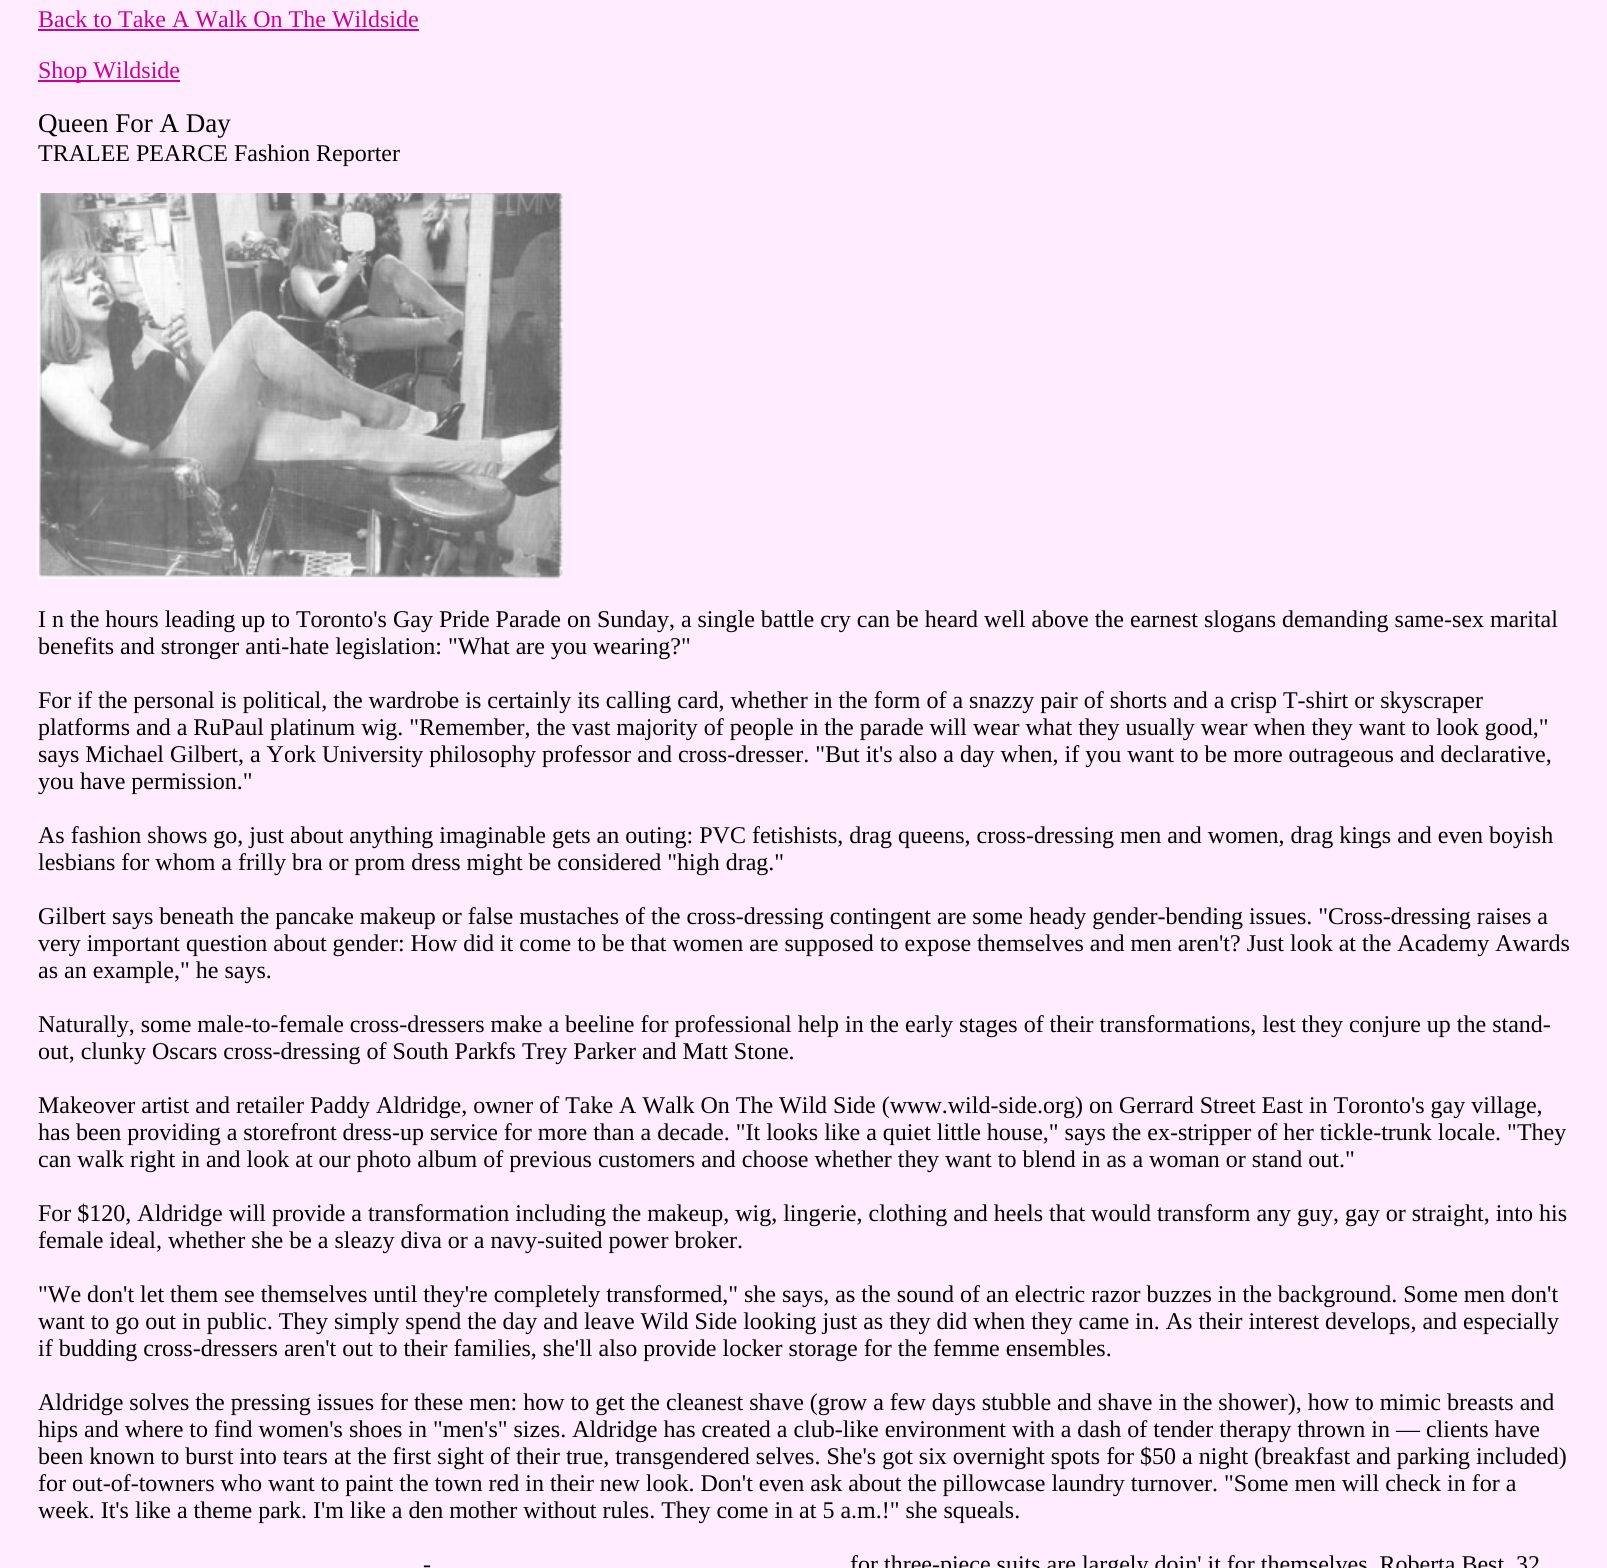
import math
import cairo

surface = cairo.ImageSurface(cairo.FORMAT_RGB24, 1607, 1568)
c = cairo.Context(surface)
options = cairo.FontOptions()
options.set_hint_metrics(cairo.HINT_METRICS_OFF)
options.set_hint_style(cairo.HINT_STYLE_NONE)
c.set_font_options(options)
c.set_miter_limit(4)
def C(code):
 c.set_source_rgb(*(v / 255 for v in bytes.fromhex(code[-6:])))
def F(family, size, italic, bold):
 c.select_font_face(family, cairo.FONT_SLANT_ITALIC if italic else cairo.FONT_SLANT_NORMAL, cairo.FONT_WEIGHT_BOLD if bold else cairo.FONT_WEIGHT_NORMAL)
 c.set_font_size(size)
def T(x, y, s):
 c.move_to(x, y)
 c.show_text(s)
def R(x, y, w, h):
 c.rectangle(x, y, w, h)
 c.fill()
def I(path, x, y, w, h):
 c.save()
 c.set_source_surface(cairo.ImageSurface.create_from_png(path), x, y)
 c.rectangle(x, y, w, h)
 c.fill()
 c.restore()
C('ffecff')
c.paint()
F('Liberation Serif',24,0,0)
C('cc0099')
T(38,27,'Back to Take A Walk On The Wildside')
R(38,29,381,2)
R(38,80,142,2)
T(38,78,'Shop Wildside')
F('Liberation Serif',27,0,0)
C('000000')
T(38,132,'Queen For A Day')
F('Liberation Serif',24,0,0)
T(38,161,'TRALEE PEARCE Fashion Reporter')
I('1.png',37,193,526,386)
T(38,627,'I n the hours leading up to Toronto\'s Gay Pride Parade on Sunday, a single battle cry can be heard well above the earnest slogans demanding same-sex marital')
T(38,654,'benefits and stronger anti-hate legislation: "What are you wearing?"')
T(38,708,'For if the personal is political, the wardrobe is certainly its calling card, whether in the form of a snazzy pair of shorts and a crisp T-shirt or skyscraper')
T(38,735,'platforms and a RuPaul platinum wig. "Remember, the vast majority of people in the parade will wear what they usually wear when they want to look good,"')
T(38,762,'says Michael Gilbert, a York University philosophy professor and cross-dresser. "But it\'s also a day when, if you want to be more outrageous and declarative,')
T(38,789,'you have permission."')
T(38,843,'As fashion shows go, just about anything imaginable gets an outing: PVC fetishists, drag queens, cross-dressing men and women, drag kings and even boyish')
T(38,870,'lesbians for whom a frilly bra or prom dress might be considered "high drag."')
T(38,924,'Gilbert says beneath the pancake makeup or false mustaches of the cross-dressing contingent are some heady gender-bending issues. "Cross-dressing raises a')
T(38,951,'very important question about gender: How did it come to be that women are supposed to expose themselves and men aren\'t? Just look at the Academy Awards')
T(38,978,'as an example," he says.')
T(38,1032,'Naturally, some male-to-female cross-dressers make a beeline for professional help in the early stages of their transformations, lest they conjure up the stand-')
T(38,1059,'out, clunky Oscars cross-dressing of South Parkfs Trey Parker and Matt Stone.')
T(38,1113,'Makeover artist and retailer Paddy Aldridge, owner of Take A Walk On The Wild Side (www.wild-side.org) on Gerrard Street East in Toronto\'s gay village,')
T(38,1140,'has been providing a storefront dress-up service for more than a decade. "It looks like a quiet little house," says the ex-stripper of her tickle-trunk locale. "They')
T(38,1167,'can walk right in and look at our photo album of previous customers and choose whether they want to blend in as a woman or stand out."')
T(38,1221,'For $120, Aldridge will provide a transformation including the makeup, wig, lingerie, clothing and heels that would transform any guy, gay or straight, into his')
T(38,1248,'female ideal, whether she be a sleazy diva or a navy-suited power broker.')
T(38,1302,'"We don\'t let them see themselves until they\'re completely transformed," she says, as the sound of an electric razor buzzes in the background. Some men don\'t')
T(38,1329,'want to go out in public. They simply spend the day and leave Wild Side looking just as they did when they came in. As their interest develops, and especially')
T(38,1356,'if budding cross-dressers aren\'t out to their families, she\'ll also provide locker storage for the femme ensembles.')
T(38,1410,'Aldridge solves the pressing issues for these men: how to get the cleanest shave (grow a few days stubble and shave in the shower), how to mimic breasts and')
T(38,1437,'hips and where to find women\'s shoes in "men\'s" sizes. Aldridge has created a club-like environment with a dash of tender therapy thrown in — clients have')
T(38,1464,'been known to burst into tears at the first sight of their true, transgendered selves. She\'s got six overnight spots for $50 a night (breakfast and parking included)')
T(38,1491,'for out-of-towners who want to paint the town red in their new look. Don\'t even ask about the pillowcase laundry turnover. "Some men will check in for a')
T(38,1518,'week. It\'s like a theme park. I\'m like a den mother without rules. They come in at 5 a.m.!" she squeals.')
T(423,1572,'-')
T(850,1572,'for three-piece suits are largely doin\' it for themselves. Roberta Best, 32')
surface.write_to_png('o.png')
